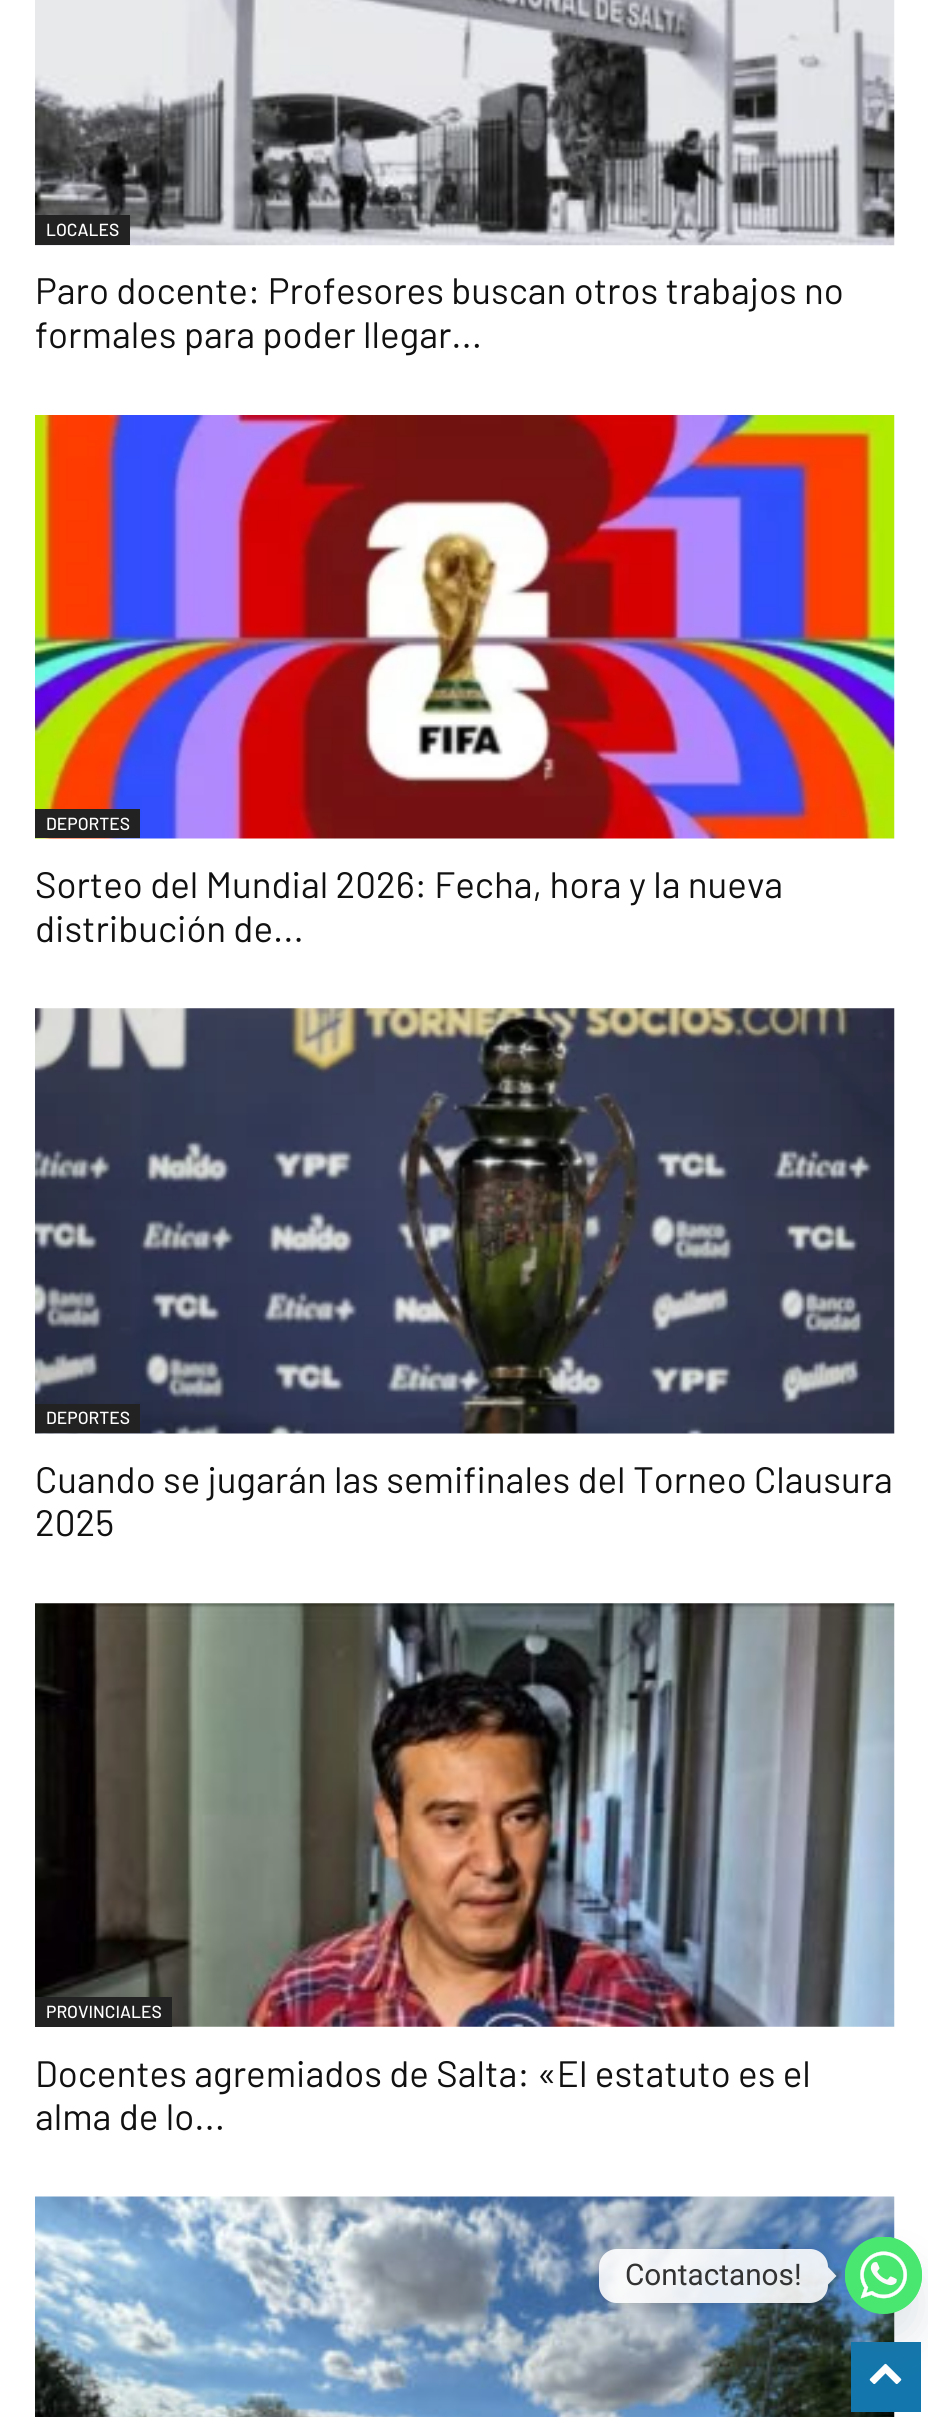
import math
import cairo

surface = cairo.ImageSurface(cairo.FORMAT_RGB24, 928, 2417)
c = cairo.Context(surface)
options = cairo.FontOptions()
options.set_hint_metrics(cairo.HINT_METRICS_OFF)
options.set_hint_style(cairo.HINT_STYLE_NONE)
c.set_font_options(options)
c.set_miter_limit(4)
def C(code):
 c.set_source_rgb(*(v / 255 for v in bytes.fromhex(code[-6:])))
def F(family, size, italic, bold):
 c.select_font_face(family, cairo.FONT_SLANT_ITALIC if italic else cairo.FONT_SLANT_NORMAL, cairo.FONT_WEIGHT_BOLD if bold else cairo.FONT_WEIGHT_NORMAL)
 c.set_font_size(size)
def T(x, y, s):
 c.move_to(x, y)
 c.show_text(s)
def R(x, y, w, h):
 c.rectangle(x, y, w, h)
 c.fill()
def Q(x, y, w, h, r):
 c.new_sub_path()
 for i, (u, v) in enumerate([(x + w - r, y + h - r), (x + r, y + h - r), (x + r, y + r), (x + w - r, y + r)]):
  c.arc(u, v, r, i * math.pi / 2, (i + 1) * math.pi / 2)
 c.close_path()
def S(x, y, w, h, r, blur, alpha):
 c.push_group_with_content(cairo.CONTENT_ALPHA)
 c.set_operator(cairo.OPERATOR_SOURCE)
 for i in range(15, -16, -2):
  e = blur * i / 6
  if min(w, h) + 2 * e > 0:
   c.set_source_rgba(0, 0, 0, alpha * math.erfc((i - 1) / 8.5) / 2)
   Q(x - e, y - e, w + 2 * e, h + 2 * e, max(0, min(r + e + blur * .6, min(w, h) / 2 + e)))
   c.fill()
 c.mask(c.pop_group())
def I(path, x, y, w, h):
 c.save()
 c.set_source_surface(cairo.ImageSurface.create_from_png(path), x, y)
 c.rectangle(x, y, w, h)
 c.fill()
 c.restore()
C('ffffff')
c.paint()
I('1.png',35,0,860,246)
C('222222')
R(35,215,95,30)
F('Barlow Medium',17.5,0,0)
C('ffffff')
T(46,236,'LOCALES')
F('Barlow',36.75,0,0)
C('111111')
T(35,304,'Paro docente: Profesores buscan otros trabajos no')
T(35,348,'formales para poder llegar...')
I('2.png',35,415,860,424)
C('222222')
R(35,809,105,29)
F('Barlow Medium',17.5,0,0)
C('ffffff')
T(46,830,'DEPORTES')
F('Barlow',36.75,0,0)
C('111111')
T(35,898,'Sorteo del Mundial 2026: Fecha, hora y la nueva')
T(35,942,'distribución de...')
I('3.png',35,1008,860,426)
C('222222')
R(35,1404,105,29)
F('Barlow Medium',17.5,0,0)
C('ffffff')
T(46,1424,'DEPORTES')
F('Barlow',36.75,0,0)
C('111111')
T(35,1493,'Cuando se jugarán las semifinales del Torneo Clausura')
T(35,1536,'2025')
I('4.png',35,1603,860,424)
C('222222')
R(35,1997,137,30)
F('Barlow Medium',17.5,0,0)
C('ffffff')
T(46,2018,'PROVINCIALES')
F('Barlow',36.75,0,0)
C('111111')
T(35,2087,'Docentes agremiados de Salta: «El estatuto es el')
T(35,2130,'alma de lo...')
I('5.png',35,2196,860,221)
C('1377ad')
R(851,2342,70,70)
I('7.png',869,2363,33,21)
C('49687e')
S(845,2265,77,77,38.5,21,.16)
C('49e670')
c.arc(883.5,2275.5,38.5,0,2 * math.pi)
c.fill()
I('6.png',845,2237,77,77)
c.save()
c.set_fill_rule(cairo.FILL_RULE_EVEN_ODD)
c.new_path()
c.move_to(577,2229)
c.line_to(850,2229)
c.line_to(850,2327)
c.line_to(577,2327)
c.close_path()
c.move_to(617,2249)
c.line_to(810,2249)
c.curve_to(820,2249,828,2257,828,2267)
c.line_to(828,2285)
c.curve_to(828,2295,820,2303,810,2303)
c.line_to(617,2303)
c.curve_to(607,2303,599,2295,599,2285)
c.line_to(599,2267)
c.curve_to(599,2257,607,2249,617,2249)
c.close_path()
c.clip()
C('000000')
S(599,2251,229,54,18,7,.15)
c.restore()
c.set_source_rgba(0.992,0.992,0.992,0.89)
Q(599,2249,229,54,18)
c.fill()
F('Roboto',29.75,0,0)
C('333333')
T(625,2285,'Contactanos!')
c.set_source_rgba(0.992,0.992,0.992,0.89)
c.new_path()
c.move_to(828,2284.5)
c.line_to(828,2267)
c.line_to(836.5,2276)
c.close_path()
c.fill()
surface.write_to_png('o.png')
